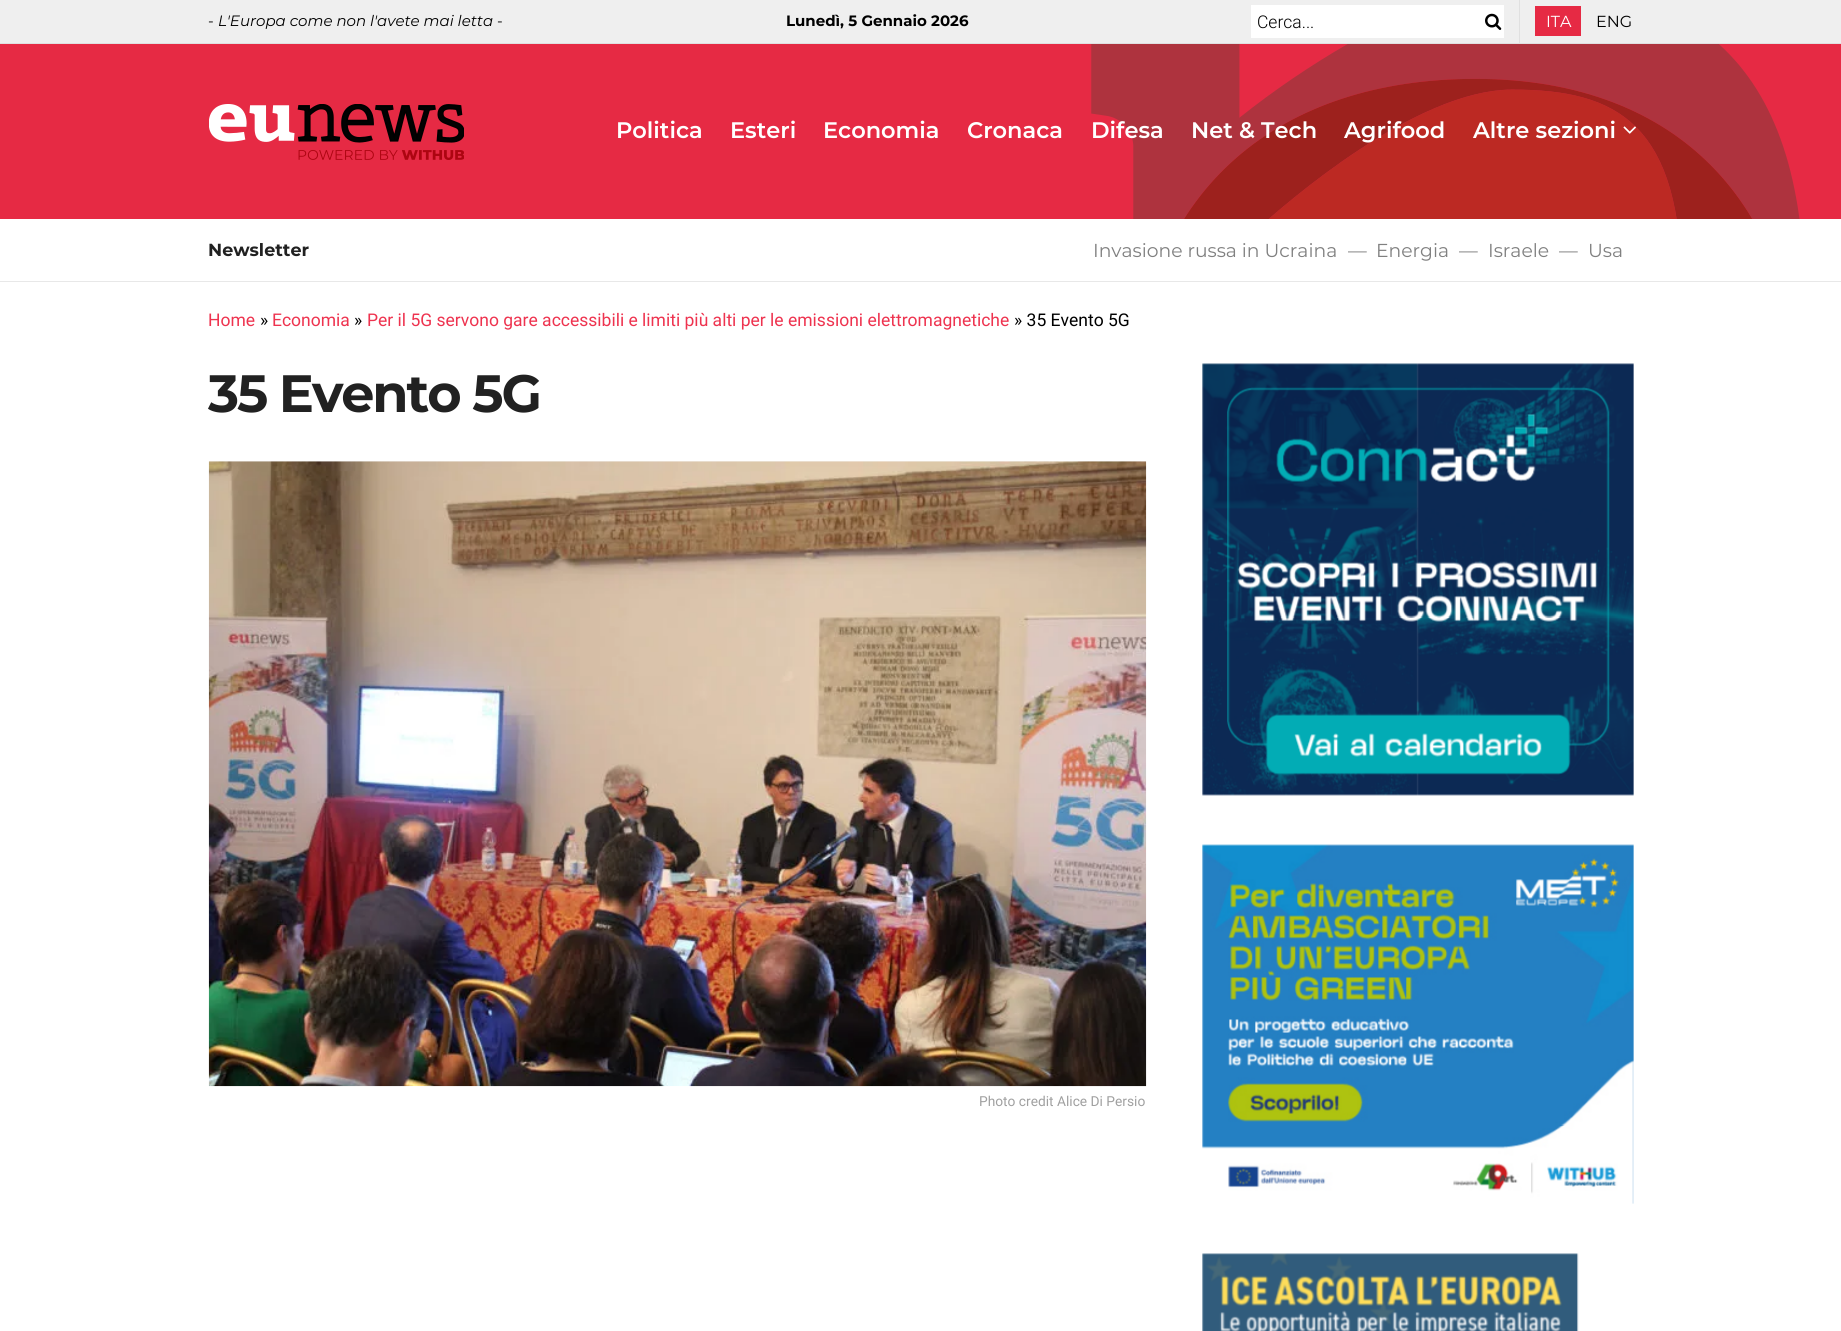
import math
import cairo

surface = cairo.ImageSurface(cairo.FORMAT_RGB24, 1841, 1331)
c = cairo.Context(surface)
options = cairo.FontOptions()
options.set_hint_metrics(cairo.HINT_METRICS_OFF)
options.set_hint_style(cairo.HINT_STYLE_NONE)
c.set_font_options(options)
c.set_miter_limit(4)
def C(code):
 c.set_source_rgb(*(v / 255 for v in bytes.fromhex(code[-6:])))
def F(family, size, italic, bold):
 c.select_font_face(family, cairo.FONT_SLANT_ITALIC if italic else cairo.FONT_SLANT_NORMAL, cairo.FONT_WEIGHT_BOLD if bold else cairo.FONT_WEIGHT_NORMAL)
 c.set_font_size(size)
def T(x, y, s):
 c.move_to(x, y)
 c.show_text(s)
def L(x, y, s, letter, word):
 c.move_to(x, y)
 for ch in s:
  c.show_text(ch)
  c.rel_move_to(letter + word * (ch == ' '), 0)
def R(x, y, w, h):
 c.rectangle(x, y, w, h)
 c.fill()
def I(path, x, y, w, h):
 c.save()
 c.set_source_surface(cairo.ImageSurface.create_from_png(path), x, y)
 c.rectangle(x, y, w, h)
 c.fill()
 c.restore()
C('ffffff')
c.paint()
C('efefef')
R(0,0,1841,43)
C('e0e0e0')
R(0,43,1841,1)
F('Montserrat',15,0,0)
C('000000')
T(208,26,'-')
F('Montserrat',15,1,0)
T(218,26,'L\'Europa come non l\'avete mai letta')
F('Montserrat',15,0,0)
T(497,26,'-')
F('Montserrat',15,0,1)
T(786,26,'Lunedì, 5 Gennaio 2026')
C('e0e0e0')
R(1519,0,1,43)
C('ffffff')
R(1251,5,253,33)
F('Roboto Light',17.5,0,0)
C('000000')
T(1257,28,'Cerca...')
I('1.png',1485,13,17,17)
C('e62a44')
R(1535,6,46,30)
F('Montserrat',16,0,0)
C('ffffff')
T(1546,27,'ITA')
C('000000')
T(1596,27,'ENG')
C('e62a44')
R(0,44,1841,175)
I('2.png',1091,44,709,175)
I('3.png',209,104,255,56)
F('Montserrat SemiBold',22.5,0,0)
C('ffffff')
T(616,138,'Politica')
T(730,138,'Esteri')
T(823,138,'Economia')
T(967,138,'Cronaca')
T(1091,138,'Difesa')
T(1191,138,'Net & Tech')
T(1344,138,'Agrifood')
T(1473,138,'Altre sezioni')
I('4.png',1623,126,13,8)
C('e8e8e8')
R(0,281,1841,1)
F('Montserrat',17.5,0,1)
C('212121')
T(208,256,'Newsletter')
F('Montserrat',18.75,0,0)
C('808080')
T(1093,257,'Invasione russa in Ucraina')
T(1348,257,'—')
T(1376,257,'Energia')
T(1459,257,'—')
T(1488,257,'Israele')
T(1559,257,'—')
T(1588,257,'Usa')
F('Roboto',17.5,0,0)
C('ee334f')
T(208,326,'Home')
C('000000')
T(260,326,'»')
C('ee334f')
T(272,326,'Economia')
C('000000')
T(354,326,'»')
C('ee334f')
T(367,326,'Per il 5G servono gare accessibili e limiti più alti per le emissioni elettromagnetiche')
C('000000')
T(1014,326,'» 35 Evento 5G')
F('Montserrat',52.5,0,1)
C('212121')
L(208,412,'35 Evento 5G',-2.1,0)
C('f7f7f7')
R(209,461,937,1)
I('5.png',208,461,939,626)
F('Roboto',13.75,0,0)
C('a0a0a0')
T(979,1106,'Photo credit Alice Di Persio')
I('6.png',1202,363,432,433)
I('7.png',1202,844,432,360)
I('8.png',1202,1253,377,78)
surface.write_to_png('o.png')
